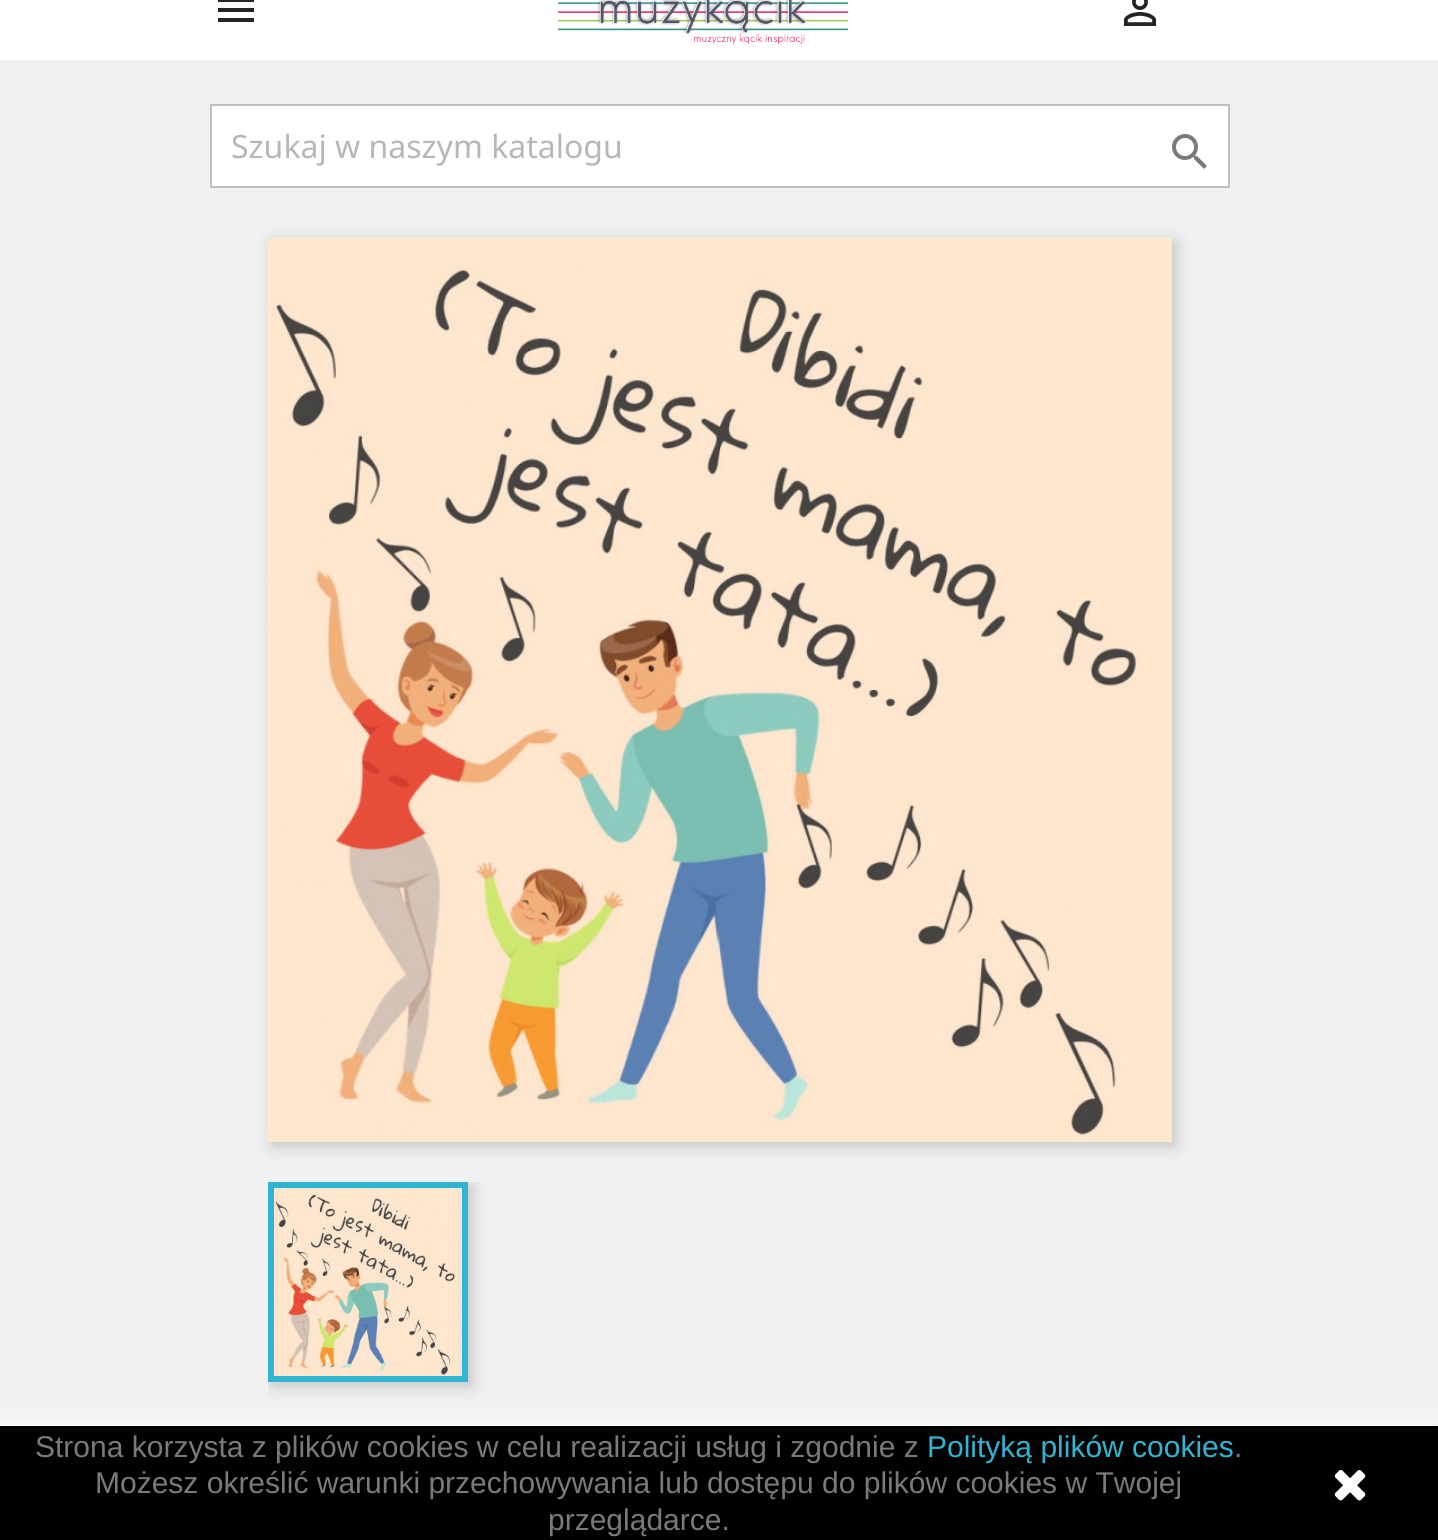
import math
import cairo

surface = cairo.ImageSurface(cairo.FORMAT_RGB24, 1438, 1540)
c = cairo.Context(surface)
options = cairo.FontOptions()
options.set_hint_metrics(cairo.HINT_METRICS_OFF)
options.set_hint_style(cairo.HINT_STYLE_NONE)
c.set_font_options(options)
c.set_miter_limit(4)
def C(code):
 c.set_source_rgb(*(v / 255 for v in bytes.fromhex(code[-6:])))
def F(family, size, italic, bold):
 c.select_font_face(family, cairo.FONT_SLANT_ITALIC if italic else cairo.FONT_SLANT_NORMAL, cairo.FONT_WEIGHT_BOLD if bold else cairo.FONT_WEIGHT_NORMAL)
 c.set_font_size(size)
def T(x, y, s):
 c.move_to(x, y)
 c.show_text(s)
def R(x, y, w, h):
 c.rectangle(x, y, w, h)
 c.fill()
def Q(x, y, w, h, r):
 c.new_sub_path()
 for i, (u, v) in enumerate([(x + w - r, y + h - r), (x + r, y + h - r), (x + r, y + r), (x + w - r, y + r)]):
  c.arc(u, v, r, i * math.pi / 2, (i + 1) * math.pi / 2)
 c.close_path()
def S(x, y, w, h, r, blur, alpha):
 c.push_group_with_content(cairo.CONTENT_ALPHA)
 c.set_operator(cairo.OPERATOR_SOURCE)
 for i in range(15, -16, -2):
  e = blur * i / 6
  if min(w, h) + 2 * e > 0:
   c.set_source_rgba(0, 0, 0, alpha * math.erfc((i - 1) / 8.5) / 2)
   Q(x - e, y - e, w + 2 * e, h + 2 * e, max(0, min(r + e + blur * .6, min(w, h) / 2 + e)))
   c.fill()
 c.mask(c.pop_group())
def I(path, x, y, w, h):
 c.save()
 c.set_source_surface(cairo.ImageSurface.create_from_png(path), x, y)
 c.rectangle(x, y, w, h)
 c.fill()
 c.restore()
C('f1f1f1')
c.paint()
C('ffffff')
R(0,0,1438,60)
C('232323')
c.new_path()
c.move_to(218,-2)
c.line_to(254,-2)
c.line_to(254,2)
c.line_to(218,2)
c.close_path()
c.move_to(218,12)
c.line_to(218,8)
c.line_to(254,8)
c.line_to(254,12)
c.close_path()
c.move_to(218,22)
c.line_to(218,18)
c.line_to(254,18)
c.line_to(254,22)
c.close_path()
c.fill()
I('1.png',558,0,290,44)
I('2.png',1123,0,34,26)
C('ffffff')
c.rectangle(211,105,1018,82)
c.fill_preserve()
C('bfbfbf')
c.stroke()
F('Noto Sans',32,0,0)
C('b7b7b7')
T(231,158,'Szukaj w naszym katalogu')
I('3.png',1172,134,35,35)
C('000000')
S(272,242,904,904,0,8,.2)
I('4.png',268,238,904,904)
c.save()
c.rectangle(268,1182,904,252)
c.clip()
S(272,1186,200,200,0,8,.2)
c.restore()
c.rectangle(271,1185,194,194)
C('2fb5d2')
c.set_line_width(6)
c.stroke()
I('5.png',274,1188,188,188)
C('ffffff')
S(0,1426,1438,114,0,10,1)
C('000000')
R(0,1426,1438,114)
F('Liberation Sans',30,0,0)
C('7a7a7a')
T(35,1457,'Strona korzysta z plików cookies w celu realizacji usług i zgodnie z')
C('2fb5d2')
T(927,1457,'Polityką plików cookies')
C('7a7a7a')
T(1234,1457,'.')
T(95,1493,'Możesz określić warunki przechowywania lub dostępu do plików cookies w Twojej')
T(548,1530,'przeglądarce.')
I('6.png',1334,1470,32,31)
surface.write_to_png('o.png')
